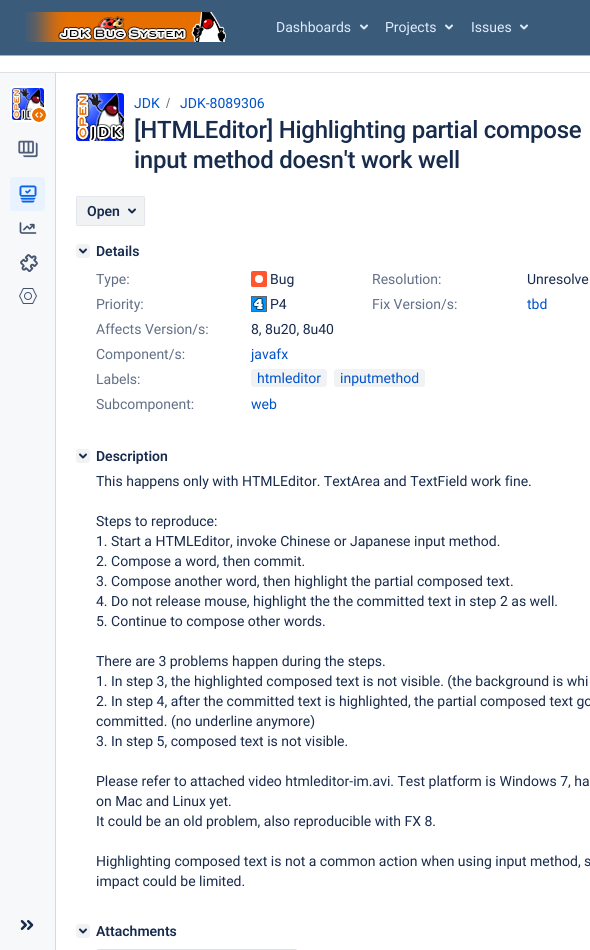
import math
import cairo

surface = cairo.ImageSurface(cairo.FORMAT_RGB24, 590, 950)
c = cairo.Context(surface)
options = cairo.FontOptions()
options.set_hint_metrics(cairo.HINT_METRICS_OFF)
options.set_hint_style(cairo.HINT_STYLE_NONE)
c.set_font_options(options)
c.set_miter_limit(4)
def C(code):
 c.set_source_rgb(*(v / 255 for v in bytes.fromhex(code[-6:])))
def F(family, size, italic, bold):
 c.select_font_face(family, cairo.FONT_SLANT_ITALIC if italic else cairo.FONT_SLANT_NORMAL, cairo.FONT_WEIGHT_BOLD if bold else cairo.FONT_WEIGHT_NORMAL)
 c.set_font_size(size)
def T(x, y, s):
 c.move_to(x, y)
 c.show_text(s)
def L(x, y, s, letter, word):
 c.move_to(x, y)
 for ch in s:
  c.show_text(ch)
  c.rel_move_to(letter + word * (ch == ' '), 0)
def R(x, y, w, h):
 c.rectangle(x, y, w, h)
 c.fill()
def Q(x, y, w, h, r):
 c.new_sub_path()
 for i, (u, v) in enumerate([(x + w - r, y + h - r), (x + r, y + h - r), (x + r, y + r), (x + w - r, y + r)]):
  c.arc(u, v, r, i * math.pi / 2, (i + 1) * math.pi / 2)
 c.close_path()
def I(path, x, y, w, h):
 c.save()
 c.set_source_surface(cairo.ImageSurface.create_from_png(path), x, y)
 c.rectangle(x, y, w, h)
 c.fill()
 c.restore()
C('ffffff')
c.paint()
C('3b5b7b')
R(0,0,590,55)
C('a4b3c4')
R(0,55,590,1)
I('1.png',25,12,201,30)
F('Roboto',14,0,0)
C('deebff')
T(276,32,'Dashboards')
I('2.png',360,24,8,6)
T(385,32,'Projects')
I('2.png',445,24,8,6)
T(471,32,'Issues')
I('2.png',520,24,8,6)
C('dde0e5')
R(0,72,590,1)
C('f7f8f9')
R(0,73,55,877)
C('d6d9df')
R(55,73,1,877)
Q(11,87,34,34,4)
C('ffffff')
c.stroke()
I('3.png',12,88,32,32)
c.arc(39,115,9,0,2 * math.pi)
c.fill()
I('4.png',32,108,14,14)
I('5.png',18,140,20,18)
C('e9f2ff')
Q(10,177,35,34,3)
c.fill()
I('6.png',19,185,18,18)
I('7.png',19,222,18,12)
I('8.png',20,254,18,18)
I('9.png',19,288,18,16)
I('10.png',20,920,14,10)
I('11.png',76,93,48,48)
C('0052cc')
T(134,108,'JDK')
C('707070')
c.new_path()
c.move_to(167,108)
c.line_to(170,98)
c.line_to(169,98)
c.line_to(166,108)
c.close_path()
c.fill()
C('0052cc')
T(180,108,'JDK-8089306')
F('Roboto Medium',24,0,0)
C('172b4d')
L(134,138,'[HTMLEditor] Highlighting partial compose',-.25,0)
L(134,168,'input method doesn\'t work well',-.25,0)
C('f0f2f4')
Q(76,196,69,30,3)
c.fill()
c.rectangle(76.5,196.5,68,29)
c.set_source_rgba(0.035,0.118,0.259,0.06)
c.set_line_width(1)
c.stroke()
F('Roboto SemiBold',14,0,0)
C('172b4d')
T(87,216,'Open')
I('12.png',128,208,8,6)
C('f0f2f4')
Q(76,244,14,14,3)
c.fill()
I('13.png',79,248,8,6)
C('172b4d')
T(96,256,'Details')
F('Roboto',14,0,0)
C('626f86')
T(96,284,'Type:')
I('14.png',251,271,16,16)
C('172b4d')
T(270,284,'Bug')
C('626f86')
T(372,284,'Resolution:')
C('172b4d')
T(527,284,'Unresolve')
C('626f86')
T(96,309,'Priority:')
I('15.png',251,296,16,16)
C('172b4d')
T(270,309,'P4')
C('626f86')
T(372,309,'Fix Version/s:')
C('0052cc')
T(527,309,'tbd')
C('626f86')
T(96,334,'Affects Version/s:')
C('172b4d')
T(251,334,'8, 8u20, 8u40')
C('626f86')
T(96,359,'Component/s:')
C('0052cc')
T(251,359,'javafx')
C('626f86')
T(96,384,'Labels:')
C('f0f2f4')
Q(251,369,76,18,3)
c.fill()
C('0052cc')
T(257,383,'htmleditor')
C('f0f2f4')
Q(334,369,91,18,3)
c.fill()
C('0052cc')
T(340,383,'inputmethod')
C('626f86')
T(96,409,'Subcomponent:')
C('0052cc')
T(251,409,'web')
C('f0f2f4')
Q(76,449,14,14,3)
c.fill()
I('13.png',79,453,8,6)
F('Roboto SemiBold',14,0,0)
C('172b4d')
T(96,461,'Description')
F('Roboto',14,0,0)
T(96,486,'This happens only with HTMLEditor. TextArea and TextField work fine.')
T(96,526,'Steps to reproduce:')
T(96,546,'1. Start a HTMLEditor, invoke Chinese or Japanese input method.')
T(96,566,'2. Compose a word, then commit.')
T(96,586,'3. Compose another word, then highlight the partial composed text.')
T(96,606,'4. Do not release mouse, highlight the the committed text in step 2 as well.')
T(96,626,'5. Continue to compose other words.')
T(96,666,'There are 3 problems happen during the steps.')
T(96,686,'1. In step 3, the highlighted composed text is not visible. (the background is whi')
T(96,706,'2. In step 4, after the committed text is highlighted, the partial composed text go')
T(96,726,'committed. (no underline anymore)')
T(96,746,'3. In step 5, composed text is not visible.')
T(96,786,'Please refer to attached video htmleditor-im.avi. Test platform is Windows 7, ha')
T(96,806,'on Mac and Linux yet.')
T(96,826,'It could be an old problem, also reproducible with FX 8.')
T(96,866,'Highlighting composed text is not a common action when using input method, s')
T(96,886,'impact could be limited.')
C('f0f2f4')
Q(76,924,14,14,3)
c.fill()
I('13.png',79,928,8,6)
F('Roboto SemiBold',14,0,0)
C('172b4d')
T(96,936,'Attachments')
Q(96.5,949.5,201,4,2.5)
C('dde0e5')
c.stroke()
surface.write_to_png('o.png')
